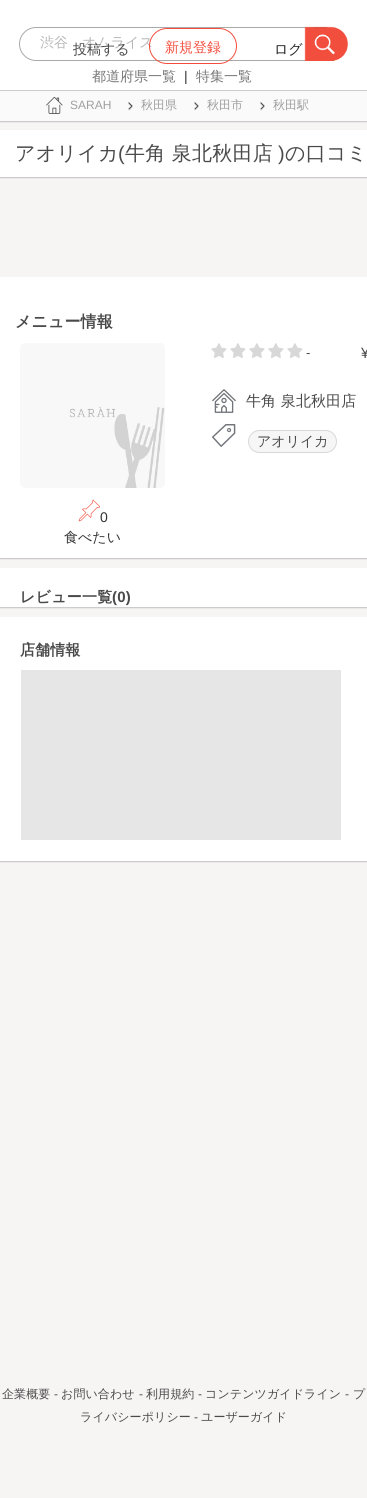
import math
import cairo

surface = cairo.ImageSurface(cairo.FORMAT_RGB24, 367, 1498)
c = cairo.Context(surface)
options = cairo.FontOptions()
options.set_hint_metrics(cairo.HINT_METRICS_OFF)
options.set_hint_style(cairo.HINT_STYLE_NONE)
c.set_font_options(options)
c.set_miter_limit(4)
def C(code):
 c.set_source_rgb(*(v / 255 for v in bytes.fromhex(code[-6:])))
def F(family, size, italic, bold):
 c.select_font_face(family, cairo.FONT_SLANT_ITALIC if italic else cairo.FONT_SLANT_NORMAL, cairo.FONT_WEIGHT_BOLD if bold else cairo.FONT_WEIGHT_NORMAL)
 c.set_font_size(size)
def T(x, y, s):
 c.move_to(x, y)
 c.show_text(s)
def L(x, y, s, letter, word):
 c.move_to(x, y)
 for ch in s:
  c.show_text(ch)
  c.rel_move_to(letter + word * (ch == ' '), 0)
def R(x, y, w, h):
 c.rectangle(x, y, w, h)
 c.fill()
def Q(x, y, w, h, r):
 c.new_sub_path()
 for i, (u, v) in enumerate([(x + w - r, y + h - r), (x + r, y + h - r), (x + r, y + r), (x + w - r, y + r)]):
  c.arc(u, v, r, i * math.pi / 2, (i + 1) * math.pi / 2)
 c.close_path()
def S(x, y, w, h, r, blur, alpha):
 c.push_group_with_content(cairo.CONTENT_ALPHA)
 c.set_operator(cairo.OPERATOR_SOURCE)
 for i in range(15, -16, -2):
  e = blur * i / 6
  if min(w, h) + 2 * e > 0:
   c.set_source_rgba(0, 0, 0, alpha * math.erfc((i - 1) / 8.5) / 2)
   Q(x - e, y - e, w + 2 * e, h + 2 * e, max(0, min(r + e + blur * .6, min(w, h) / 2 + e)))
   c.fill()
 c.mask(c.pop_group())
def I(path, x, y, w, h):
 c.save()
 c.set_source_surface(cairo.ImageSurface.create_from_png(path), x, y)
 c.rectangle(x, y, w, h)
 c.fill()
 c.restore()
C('f7f4f4')
c.paint()
C('000000')
S(0,92,367,30,0,.5,.2)
C('ffffff')
R(0,0,367,90)
C('cdcaca')
R(0,90,367,1)
c.new_path()
c.move_to(36,27.5)
c.line_to(315.5,27.5)
c.line_to(315.5,60.5)
c.line_to(36,60.5)
c.curve_to(27,60.5,19.5,53,19.5,44)
c.curve_to(19.5,35,27,27.5,36,27.5)
c.close_path()
C('aaaaaa')
c.set_line_width(1)
c.stroke()
F('WenQuanYi Zen Hei Medium',14,0,0)
C('b7b7b7')
T(40,47,'渋谷　オムライス')
Q(313.5,27.5,14,33,1.5)
C('767676')
c.stroke()
I('1.png',304,26,44,35)
C('777777')
T(92,81,'都道府県一覧')
F('Liberation Sans',14,0,0)
C('333333')
T(184,81,'|')
F('WenQuanYi Zen Hei Medium',14,0,0)
C('777777')
T(196,81,'特集一覧')
C('4a4a4a')
T(73,54,'投稿する')
Q(149.5,28.5,87,35,17.5)
C('f24e3d')
c.stroke()
T(165,52,'新規登録')
C('202020')
T(274,54,'ログ')
C('fafafa')
R(0,91,367,30)
I('2.png',46,96,17,18)
F('Liberation Sans',12,0,0)
C('a0a0a0')
T(70,109,'SARAH')
I('3.png',128,102,5,9)
F('WenQuanYi Zen Hei Medium',12,0,0)
T(141,109,'秋田県')
I('3.png',194,102,5,9)
T(207,109,'秋田市')
I('3.png',260,102,5,9)
T(273,109,'秋田駅')
C('000000')
S(0,131,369,47,0,.5,.2)
C('ffffff')
R(0,130,367,47)
F('WenQuanYi Zen Hei Medium',20,0,0)
C('4a4a4a')
L(15,160,'アオリイカ',.25,0)
F('Liberation Sans',20,0,0)
L(118,160,'(',.25,0)
F('WenQuanYi Zen Hei Medium',20,0,0)
L(125,160,'牛角 泉北秋田店',.25,0)
F('Liberation Sans',20,0,0)
L(278,160,')',.25,0)
F('WenQuanYi Zen Hei Medium',20,0,0)
L(285,160,'の口コミ',.25,0)
C('000000')
S(0,278,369,281,0,.5,.2)
C('ffffff')
R(0,277,367,281)
F('WenQuanYi Zen Hei',16,0,1)
C('4a4a4a')
L(15,327,'メニュー情報',.1,0)
I('4.png',211,343,16,15)
I('4.png',230,343,16,15)
I('4.png',249,343,16,15)
I('4.png',268,343,16,15)
I('4.png',287,343,16,15)
F('Liberation Sans',13,0,0)
T(306,357,'-')
F('Liberation Sans',15,0,0)
T(361,358,'¥')
I('5.png',212,389,24,24)
F('WenQuanYi Zen Hei Medium',15,0,0)
L(246,406,'牛角 泉北秋田店',.1,0)
I('6.png',212,424,24,23)
C('f6f6f6')
Q(248.5,430.5,88,22,11)
c.fill_preserve()
C('d8d8d8')
c.stroke()
F('WenQuanYi Zen Hei Medium',14,0,0)
C('4a4a4a')
T(257,446,'アオリイカ')
I('7.png',20,343,145,145)
I('8.png',78,499,22,23)
F('Liberation Sans',14,0,0)
C('333333')
T(100,522,'0')
F('WenQuanYi Zen Hei Medium',14,0,0)
T(64,542,'食べたい')
C('000000')
S(0,569,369,39,0,.5,.2)
C('ffffff')
R(0,568,367,39)
F('WenQuanYi Zen Hei',15,0,1)
C('4a4a4a')
L(20,602,'レビュー一覧',.25,0)
F('Liberation Sans',15,0,1)
L(112,602,'(0)',.25,0)
C('000000')
S(0,618,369,244,0,.5,.2)
C('ffffff')
R(0,617,367,244)
F('WenQuanYi Zen Hei',15,0,1)
C('4a4a4a')
L(20,655,'店舗情報',.1,0)
C('e6e6e6')
R(21,670,320,170)
F('WenQuanYi Zen Hei Medium',12,0,0)
C('4a4a4a')
L(2,1398,'企業概要',.1,0)
F('Liberation Sans',12,0,0)
L(54,1398,'-',.1,0)
F('WenQuanYi Zen Hei Medium',12,0,0)
L(61,1398,'お問い合わせ',.1,0)
F('Liberation Sans',12,0,0)
L(139,1398,'-',.1,0)
F('WenQuanYi Zen Hei Medium',12,0,0)
L(146,1398,'利用規約',.1,0)
F('Liberation Sans',12,0,0)
L(198,1398,'-',.1,0)
F('WenQuanYi Zen Hei Medium',12,0,0)
L(205,1398,'コンテンツガイドライン',.1,0)
F('Liberation Sans',12,0,0)
L(345,1398,'-',.1,0)
F('WenQuanYi Zen Hei Medium',12,0,0)
L(353,1398,'プ',.1,0)
L(80,1421,'ライバシーポリシー',.1,0)
F('Liberation Sans',12,0,0)
L(194,1421,'-',.1,0)
F('WenQuanYi Zen Hei Medium',12,0,0)
L(201,1421,'ユーザーガイド',.1,0)
surface.write_to_png('o.png')
